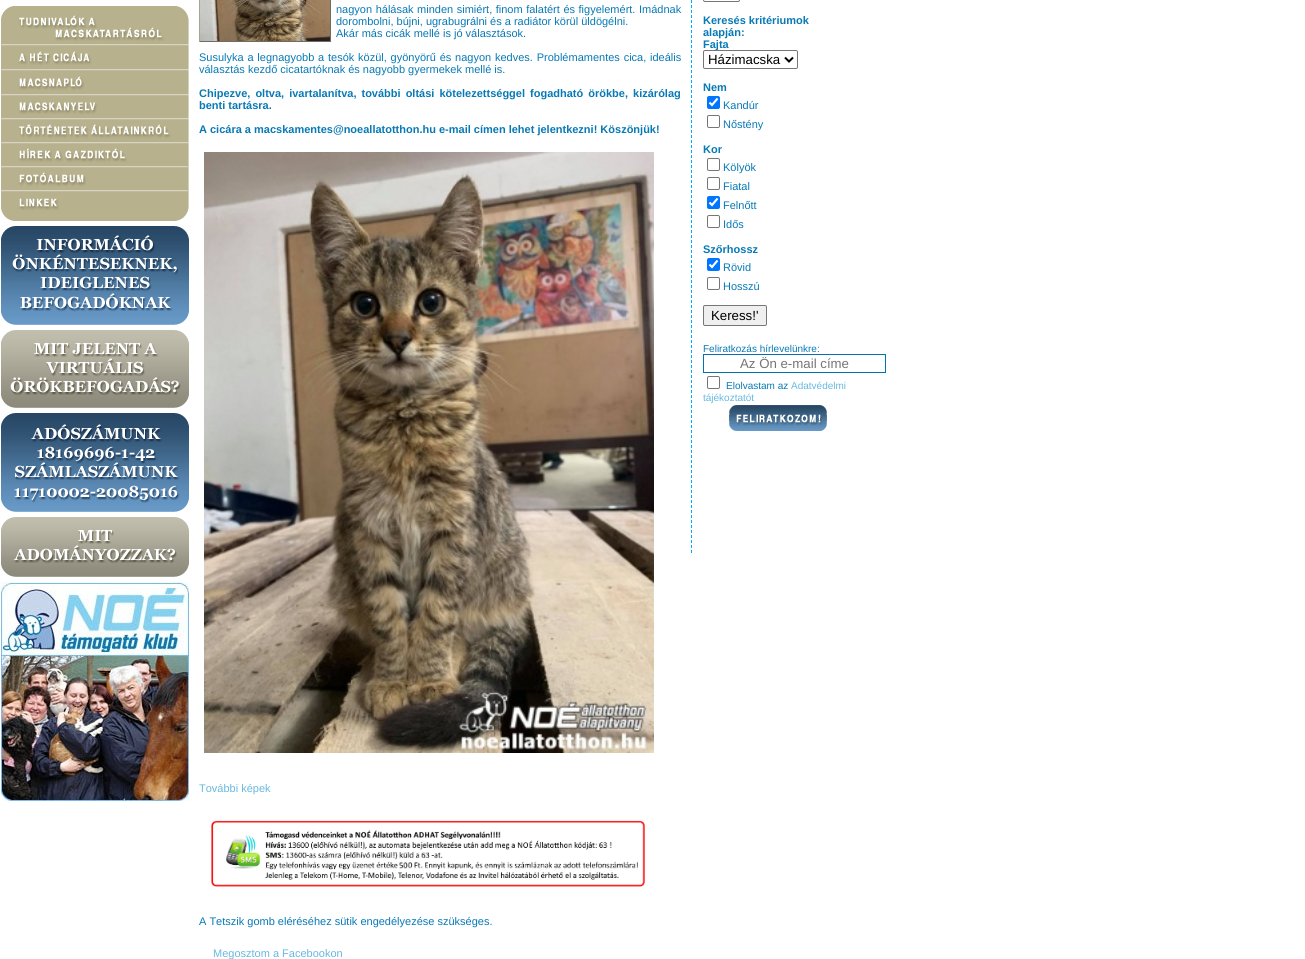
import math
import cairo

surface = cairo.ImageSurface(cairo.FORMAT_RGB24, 1305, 959)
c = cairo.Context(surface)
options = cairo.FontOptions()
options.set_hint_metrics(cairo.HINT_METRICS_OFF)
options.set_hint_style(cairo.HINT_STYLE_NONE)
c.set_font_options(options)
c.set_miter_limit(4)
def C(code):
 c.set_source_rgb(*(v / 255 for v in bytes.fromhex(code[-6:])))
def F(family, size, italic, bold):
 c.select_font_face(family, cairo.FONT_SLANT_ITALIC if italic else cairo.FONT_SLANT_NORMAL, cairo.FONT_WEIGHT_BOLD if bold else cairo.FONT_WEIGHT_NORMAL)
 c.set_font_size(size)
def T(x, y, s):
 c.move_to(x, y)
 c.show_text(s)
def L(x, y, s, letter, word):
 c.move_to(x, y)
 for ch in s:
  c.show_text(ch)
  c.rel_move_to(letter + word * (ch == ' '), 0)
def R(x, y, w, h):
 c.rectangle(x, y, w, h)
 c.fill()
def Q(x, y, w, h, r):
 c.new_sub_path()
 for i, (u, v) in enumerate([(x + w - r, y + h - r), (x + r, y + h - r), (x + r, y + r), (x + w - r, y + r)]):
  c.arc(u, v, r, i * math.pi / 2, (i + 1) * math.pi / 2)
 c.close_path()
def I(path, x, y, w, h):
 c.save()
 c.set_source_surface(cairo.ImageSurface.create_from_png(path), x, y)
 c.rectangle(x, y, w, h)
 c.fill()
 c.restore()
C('ffffff')
c.paint()
I('1.png',1,6,188,38)
I('2.png',1,44,188,25)
I('3.png',1,69,188,25)
I('4.png',1,94,188,25)
I('5.png',1,119,188,25)
I('6.png',1,144,188,24)
I('7.png',1,168,188,24)
I('8.png',1,192,188,29)
I('9.png',1,226,188,99)
I('10.png',1,330,188,78)
I('11.png',1,413,188,99)
I('12.png',1,517,188,60)
I('13.png',1,582,188,219)
c.new_path()
c.move_to(691.5,-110)
c.line_to(691.5,553)
C('00abfe')
c.set_line_width(1)
c.set_dash([3,2])
c.stroke()
C('6f6d61')
R(330,0,1,42)
R(199,41,132,1)
C('a6a391')
R(199,0,1,42)
I('14.png',200,0,130,41)
F('Liberation Sans',11,0,0)
C('0779b5')
L(336,13,'nagyon hálásak minden simiért, finom falatért és figyelemért. Imádnak',0,.5)
T(336,25,'dorombolni, bújni, ugrabugrálni és a radiátor körül üldögélni.')
T(336,37,'Akár más cicák mellé is jó választások.')
L(199,61,'Susulyka a legnagyobb a tesók közül, gyönyörű és nagyon kedves. Problémamentes cica, ideális',0,.75)
T(199,73,'választás kezdő cicatartóknak és nagyobb gyermekek mellé is.')
F('Liberation Sans',11,0,1)
L(199,97,'Chipezve, oltva, ivartalanítva, további oltási kötelezettséggel fogadható örökbe, kizárólag',0,2)
T(199,109,'benti tartásra.')
T(199,133,'A cicára a macskamentes@noeallatotthon.hu e-mail címen lehet jelentkezni! Köszönjük!')
I('15.png',204,152,450,601)
F('Liberation Sans',11,0,0)
C('68b8df')
T(199,792,'További képek')
I('16.png',211,820,434,67)
C('0779b5')
T(199,925,'A Tetszik gomb eléréséhez sütik engedélyezése szükséges.')
C('68b8df')
T(213,957,'Megosztom a Facebookon')
Q(703.5,-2.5,36,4,1.5)
C('767676')
c.set_dash([])
c.stroke()
F('Liberation Sans',11,0,1)
C('0779b5')
T(703,24,'Keresés kritériumok')
T(703,36,'alapján:')
T(703,48,'Fajta')
C('ffffff')
Q(703.5,50.5,94,18,1.5)
c.fill_preserve()
C('767676')
c.stroke()
c.new_path()
c.move_to(785,57.5)
c.line_to(789,61.5)
c.line_to(793,57.5)
C('000000')
c.set_line_width(2)
c.stroke()
F('Liberation Sans',13.25,0,0)
T(708,64,'Házimacska')
F('Liberation Sans',11,0,1)
C('0779b5')
T(703,91,'Nem')
C('0075ff')
Q(707,96,13,13,2)
c.fill()
c.new_path()
c.move_to(709.5,102.5)
c.line_to(712,105)
c.line_to(717.5,98.5)
C('ffffff')
c.set_line_width(2.1)
c.stroke()
F('Liberation Sans',11,0,0)
C('0779b5')
T(723,109,'Kandúr')
Q(707.5,115.5,12,12,1.5)
C('767676')
c.set_line_width(1)
c.stroke()
C('0779b5')
T(723,128,'Nőstény')
F('Liberation Sans',11,0,1)
T(703,153,'Kor')
Q(707.5,158.5,12,12,1.5)
C('767676')
c.stroke()
F('Liberation Sans',11,0,0)
C('0779b5')
T(723,171,'Kölyök')
Q(707.5,177.5,12,12,1.5)
C('767676')
c.stroke()
C('0779b5')
T(723,190,'Fiatal')
C('0075ff')
Q(707,196,13,13,2)
c.fill()
c.new_path()
c.move_to(709.5,202.5)
c.line_to(712,205)
c.line_to(717.5,198.5)
C('ffffff')
c.set_line_width(2.1)
c.stroke()
C('0779b5')
T(723,209,'Felnőtt')
Q(707.5,215.5,12,12,1.5)
C('767676')
c.set_line_width(1)
c.stroke()
C('0779b5')
T(723,228,'Idős')
F('Liberation Sans',11,0,1)
T(703,253,'Szőrhossz')
C('0075ff')
Q(707,258,13,13,2)
c.fill()
c.new_path()
c.move_to(709.5,264.5)
c.line_to(712,267)
c.line_to(717.5,260.5)
C('ffffff')
c.set_line_width(2.1)
c.stroke()
F('Liberation Sans',11,0,0)
C('0779b5')
T(723,271,'Rövid')
Q(707.5,277.5,12,12,1.5)
C('767676')
c.set_line_width(1)
c.stroke()
C('0779b5')
T(723,290,'Hosszú')
C('efefef')
Q(703.5,305.5,63,20,1.5)
c.fill_preserve()
C('767676')
c.stroke()
F('Liberation Sans',13.25,0,0)
C('000000')
T(711,320,'Keress!\'')
F('Liberation Sans',10,0,0)
C('0779b5')
T(703,352,'Feliratkozás hírlevelünkre:')
c.rectangle(703.5,354.5,182,18)
C('0074b1')
c.stroke()
F('Liberation Sans',13.25,0,0)
C('757575')
T(740,368,'Az Ön e-mail címe')
Q(707.5,376.5,12,12,1.5)
C('767676')
c.stroke()
F('Liberation Sans',10,0,0)
C('0779b5')
T(726,389,'Elolvastam az')
C('68b8df')
T(791,389,'Adatvédelmi')
T(703,401,'tájékoztatót')
I('17.png',729,405,98,26)
surface.write_to_png('o.png')
